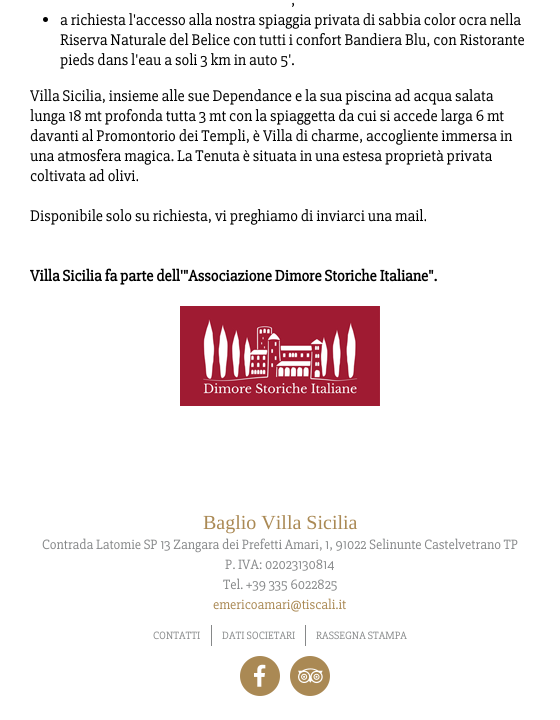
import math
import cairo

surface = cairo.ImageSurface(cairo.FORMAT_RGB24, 560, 720)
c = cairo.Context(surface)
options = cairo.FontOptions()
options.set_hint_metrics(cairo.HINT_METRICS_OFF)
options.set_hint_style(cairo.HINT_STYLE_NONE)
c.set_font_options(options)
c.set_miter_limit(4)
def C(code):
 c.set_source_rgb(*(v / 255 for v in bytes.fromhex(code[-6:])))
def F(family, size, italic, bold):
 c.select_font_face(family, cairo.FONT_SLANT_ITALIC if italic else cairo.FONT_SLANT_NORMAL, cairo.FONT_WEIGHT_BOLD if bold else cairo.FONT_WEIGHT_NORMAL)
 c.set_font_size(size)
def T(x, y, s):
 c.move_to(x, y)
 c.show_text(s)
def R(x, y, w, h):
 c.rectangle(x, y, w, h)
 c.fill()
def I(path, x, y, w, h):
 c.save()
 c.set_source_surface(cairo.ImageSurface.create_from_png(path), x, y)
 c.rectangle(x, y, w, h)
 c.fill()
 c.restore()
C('ffffff')
c.paint()
F('Slabo 27px',16,0,0)
C('000000')
T(291,5,',')
c.new_path()
c.arc(45.5,19.5,2.5,0,2 * math.pi)
c.fill()
T(60,25,'a richiesta l\'accesso alla nostra spiaggia privata di sabbia color ocra nella')
T(60,45,'Riserva Naturale del Belice con tutti i confort Bandiera Blu, con Ristorante')
T(60,65,'pieds dans l\'eau a soli 3 km in auto 5\'.')
T(30,101,'Villa Sicilia, insieme alle sue Dependance e la sua piscina ad acqua salata')
T(30,121,'lunga 18 mt profonda tutta 3 mt con la spiaggetta da cui si accede larga 6 mt')
T(30,141,'davanti al Promontorio dei Templi, è Villa di charme, accogliente immersa in')
T(30,161,'una atmosfera magica. La Tenuta è situata in una estesa proprietà privata')
T(30,181,'coltivata ad olivi.')
T(30,221,'Disponibile solo su richiesta, vi preghiamo di inviarci una mail.')
F('Slabo 27px',16,0,1)
T(30,281,'Villa Sicilia fa parte dell\'"Associazione Dimore Storiche Italiane".')
I('1.png',180,306,200,100)
F('Liberation Serif',20,0,0)
C('aa8954')
T(203,529,'Baglio Villa Sicilia')
F('Slabo 27px',14,0,0)
C('868889')
T(42,549,'Contrada Latomie SP 13 Zangara dei Prefetti Amari, 1, 91022 Selinunte Castelvetrano TP')
T(225,569,'P. IVA: 02023130814')
T(223,589,'Tel. +39 335 6022825')
C('aa8954')
T(213,609,'emericoamari@tiscali.it')
C('868889')
R(211,625,1,21)
F('Slabo 27px',11,0,0)
T(153,639,'CONTATTI')
R(305,625,1,21)
T(222,639,'DATI SOCIETARI')
T(316,639,'RASSEGNA STAMPA')
C('aa8954')
c.new_path()
c.arc(260,676,20,0,2 * math.pi)
c.fill()
I('2.png',254,664,12,23)
c.arc(310,676,20,0,2 * math.pi)
c.fill()
I('3.png',298,668,25,16)
surface.write_to_png('o.png')
